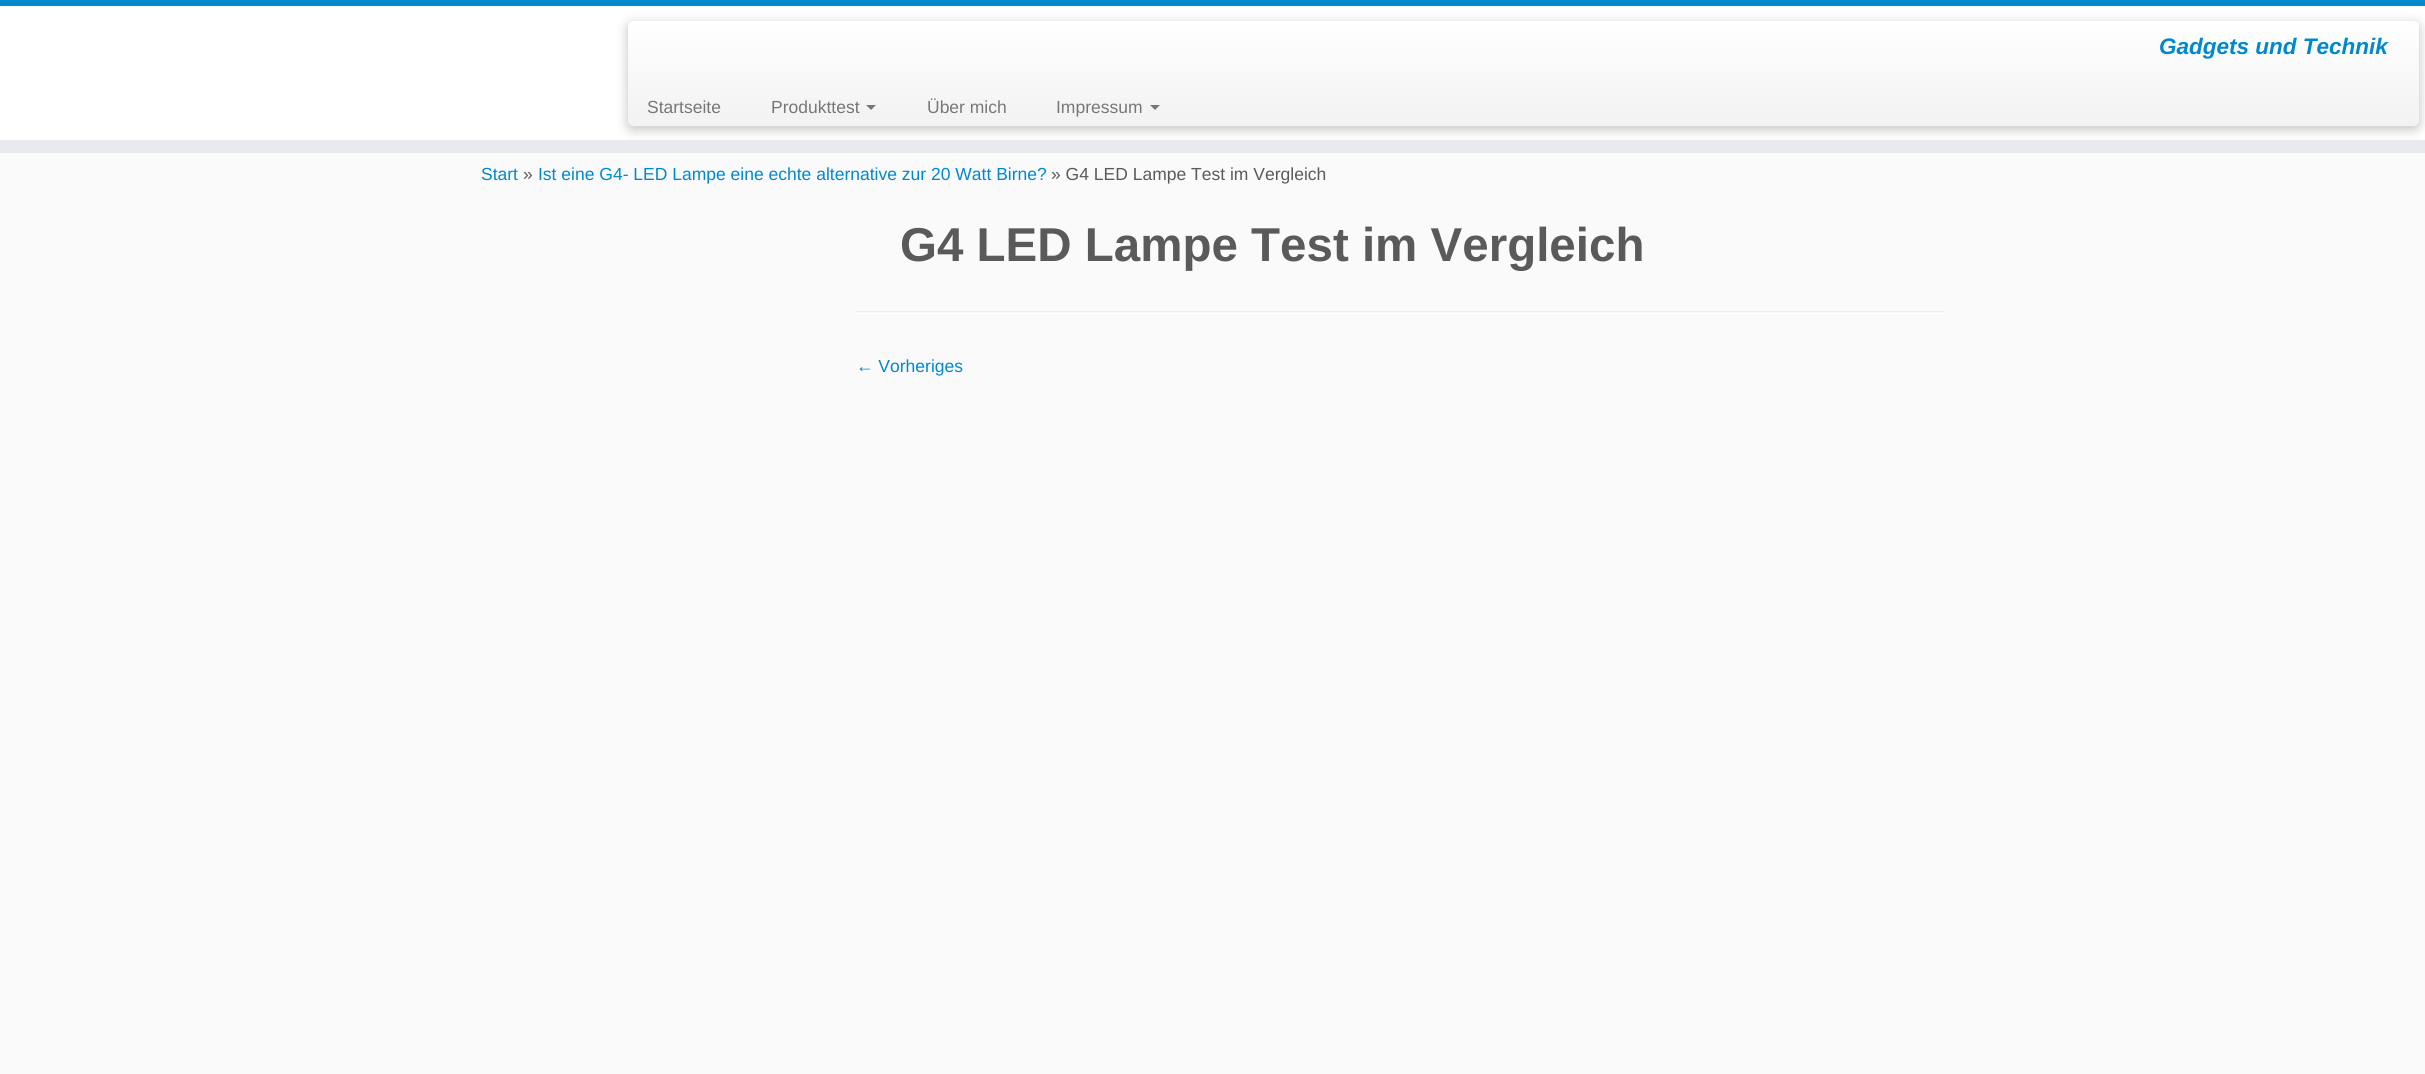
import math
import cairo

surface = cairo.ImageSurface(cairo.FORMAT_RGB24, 2425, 1074)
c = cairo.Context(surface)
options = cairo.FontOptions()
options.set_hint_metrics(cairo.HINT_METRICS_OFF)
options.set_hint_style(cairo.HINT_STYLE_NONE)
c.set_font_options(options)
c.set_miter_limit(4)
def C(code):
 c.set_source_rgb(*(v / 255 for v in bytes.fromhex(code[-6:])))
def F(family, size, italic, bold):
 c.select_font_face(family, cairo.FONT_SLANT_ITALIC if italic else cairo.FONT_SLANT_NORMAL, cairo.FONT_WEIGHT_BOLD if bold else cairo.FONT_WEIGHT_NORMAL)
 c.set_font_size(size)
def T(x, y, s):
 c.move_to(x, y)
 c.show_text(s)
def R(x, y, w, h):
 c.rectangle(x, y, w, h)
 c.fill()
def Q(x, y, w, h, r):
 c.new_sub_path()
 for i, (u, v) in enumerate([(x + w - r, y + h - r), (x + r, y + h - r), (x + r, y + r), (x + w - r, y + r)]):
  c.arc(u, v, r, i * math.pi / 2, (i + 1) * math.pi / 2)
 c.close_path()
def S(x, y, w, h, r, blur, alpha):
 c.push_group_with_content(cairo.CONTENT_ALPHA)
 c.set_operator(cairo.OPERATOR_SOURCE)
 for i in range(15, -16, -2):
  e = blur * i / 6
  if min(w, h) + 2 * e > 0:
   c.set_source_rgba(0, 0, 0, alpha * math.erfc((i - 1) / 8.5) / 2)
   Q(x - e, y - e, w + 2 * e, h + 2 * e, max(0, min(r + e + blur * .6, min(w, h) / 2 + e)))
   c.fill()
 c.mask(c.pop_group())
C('fafafa')
c.paint()
C('ffffff')
R(0,6,2425,134)
C('0088cc')
R(0,0,2425,6)
C('e9eaee')
R(0,140,2425,13)
C('000000')
S(628,24,1791,105,5,6,.25)
gradient = cairo.LinearGradient(1523,21,1523,126)
gradient.add_color_stop_rgba(0,1,1,1,1)
gradient.add_color_stop_rgba(1,0.949,0.949,0.949,1)
c.set_source(gradient)
Q(628,21,1791,105,5)
c.fill()
F('Liberation Sans',22.5,1,1)
C('0088cc')
T(2159,54,'Gadgets und Technik')
F('Liberation Sans',17.5,0,0)
C('777777')
T(647,113,'Startseite')
T(771,113,'Produkttest')
c.new_path()
c.move_to(866,105)
c.line_to(876,105)
c.line_to(871,110)
c.close_path()
c.fill()
T(927,113,'Über mich')
T(1056,113,'Impressum')
c.new_path()
c.move_to(1150,105)
c.line_to(1160,105)
c.line_to(1155,110)
c.close_path()
c.fill()
C('0088cc')
T(481,180,'Start')
C('5a5a5a')
T(523,180,'»')
C('0088cc')
T(538,180,'Ist eine G4- LED Lampe eine echte alternative zur 20 Watt Birne?')
C('5a5a5a')
T(1051,180,'» G4 LED Lampe Test im Vergleich')
F('Liberation Sans',47.5,0,1)
T(900,261,'G4 LED Lampe Test im Vergleich')
C('eeeeee')
R(856,311,1088,1)
C('ffffff')
R(856,313,1088,1)
F('Liberation Sans',17.5,0,0)
C('0088cc')
T(856,372,'← Vorheriges')
surface.write_to_png('o.png')
